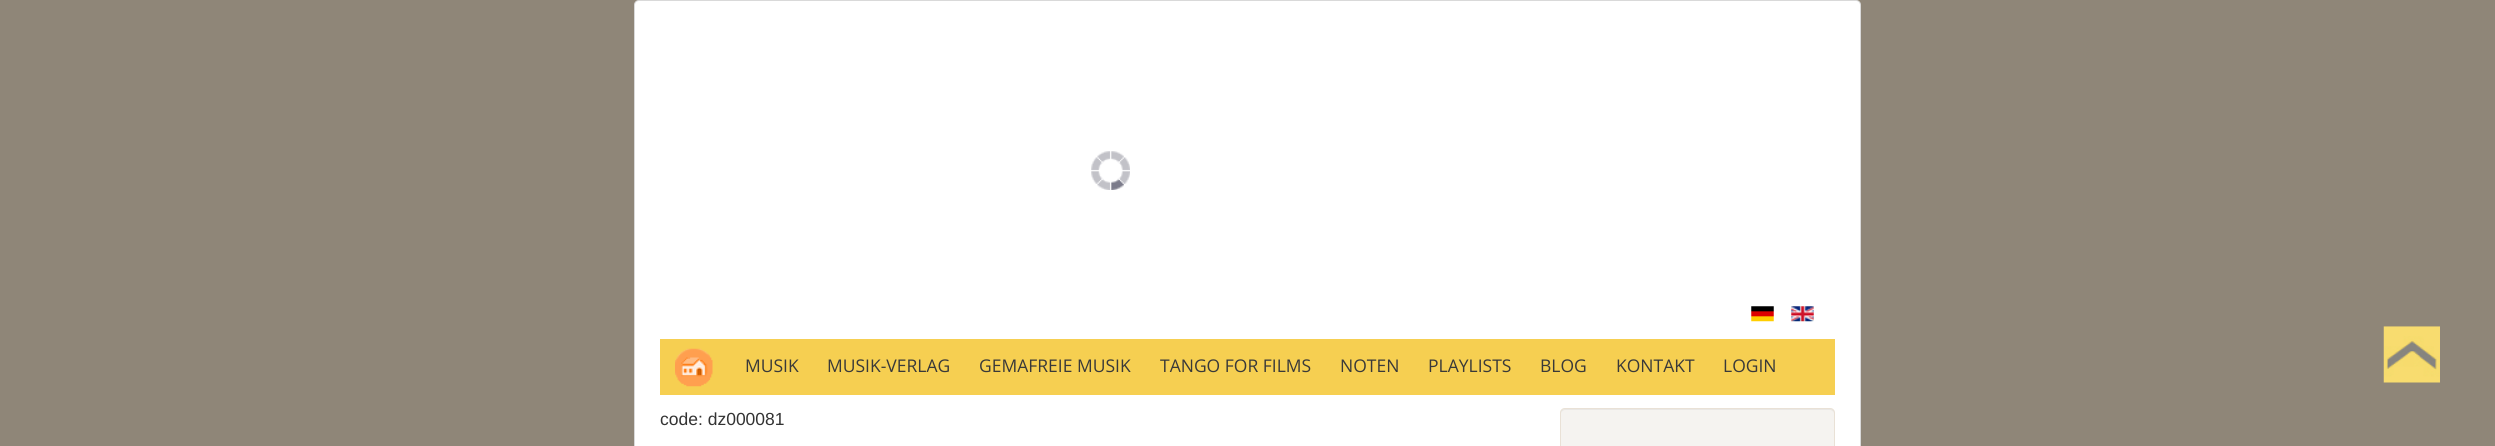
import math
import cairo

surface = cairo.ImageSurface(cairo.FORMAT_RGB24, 2495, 446)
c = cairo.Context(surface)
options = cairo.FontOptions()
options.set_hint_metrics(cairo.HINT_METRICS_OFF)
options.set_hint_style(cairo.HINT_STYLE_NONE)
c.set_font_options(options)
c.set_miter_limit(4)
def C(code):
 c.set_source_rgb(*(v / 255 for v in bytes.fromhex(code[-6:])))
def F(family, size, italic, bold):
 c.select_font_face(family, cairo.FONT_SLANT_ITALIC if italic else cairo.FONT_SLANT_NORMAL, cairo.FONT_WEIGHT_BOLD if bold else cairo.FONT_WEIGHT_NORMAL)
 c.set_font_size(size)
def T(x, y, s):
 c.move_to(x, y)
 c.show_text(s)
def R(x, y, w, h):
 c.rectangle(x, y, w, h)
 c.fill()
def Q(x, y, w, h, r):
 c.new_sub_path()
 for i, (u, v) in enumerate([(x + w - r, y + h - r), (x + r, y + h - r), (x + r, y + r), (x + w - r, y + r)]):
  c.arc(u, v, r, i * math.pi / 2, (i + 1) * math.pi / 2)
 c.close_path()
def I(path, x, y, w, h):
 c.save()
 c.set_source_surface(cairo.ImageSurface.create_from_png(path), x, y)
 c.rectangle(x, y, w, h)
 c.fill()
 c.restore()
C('8f8678')
c.paint()
C('ffffff')
Q(634,0,1227,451,5)
c.fill()
Q(634.5,.5,1226,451,4.5)
c.set_source_rgba(0,0,0,0.15)
c.set_line_width(1)
c.stroke()
I('1.png',1091,151,39,39)
I('2.png',1751,306,23,16)
I('3.png',1791,306,23,16)
C('f6cf51')
R(660,339,1175,56)
I('4.png',675,348,38,39)
F('Open Sans',17.5,0,0)
C('393939')
T(745,372,'MUSIK')
T(827,372,'MUSIK-VERLAG')
T(979,372,'GEMAFREIE MUSIK')
T(1160,372,'TANGO FOR FILMS')
T(1340,372,'NOTEN')
T(1428,372,'PLAYLISTS')
T(1540,372,'BLOG')
T(1616,372,'KONTAKT')
T(1723,372,'LOGIN')
F('Liberation Sans',17.5,0,0)
C('333333')
T(660,425,'code: dz000081')
C('f5f3f0')
Q(1560,408,275,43,5)
c.fill()
C('e9e7e4')
c.new_path()
c.move_to(1565,410)
c.line_to(1830,410)
c.curve_to(1832,410,1834,412,1834,414)
c.curve_to(1834,411,1833,409,1830,409)
c.line_to(1565,409)
c.curve_to(1562,409,1561,411,1561,414)
c.curve_to(1561,412,1563,410,1565,410)
c.close_path()
c.fill()
Q(1560.5,408.5,274,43,4.5)
C('e9e1d6')
c.stroke()
I('5.png',2383,326,57,57)
surface.write_to_png('o.png')
